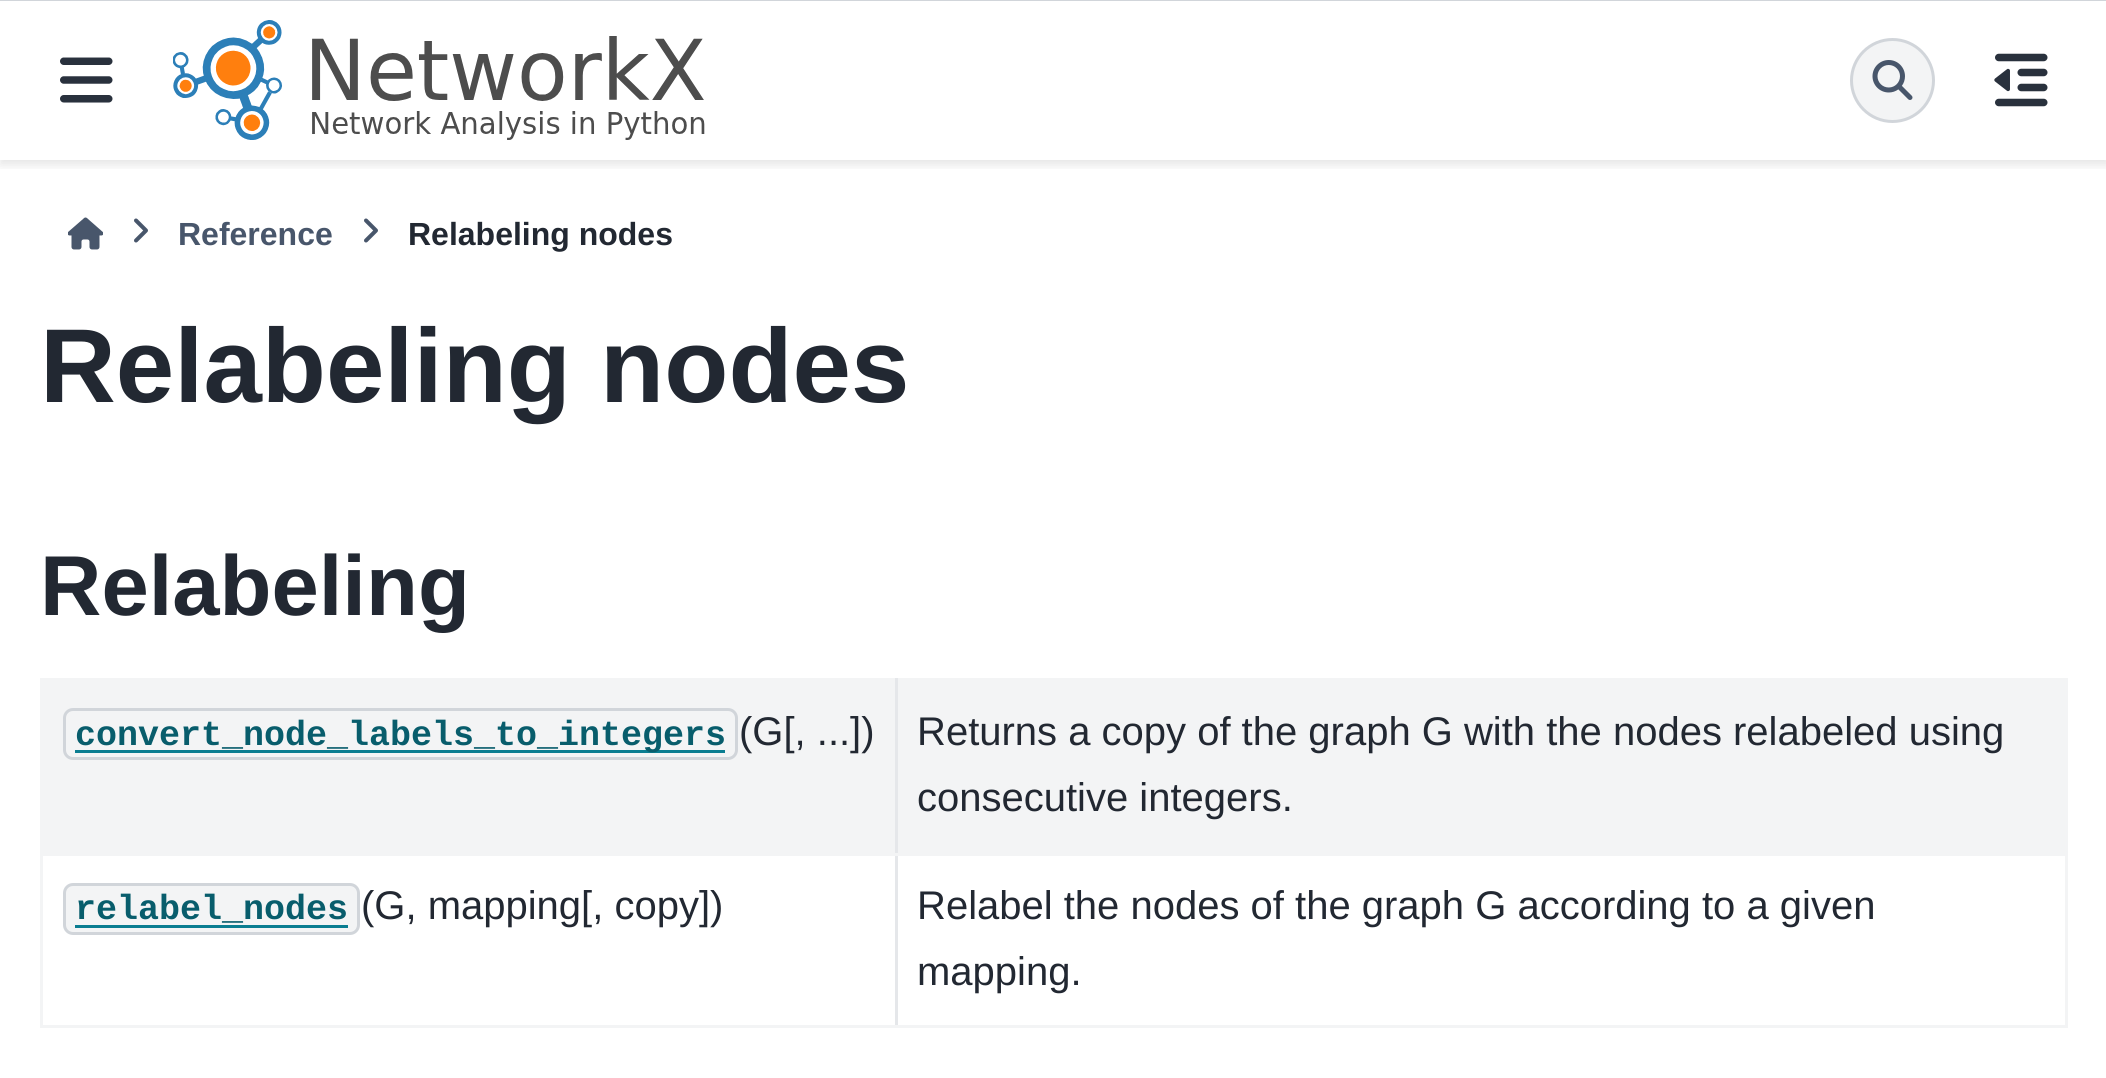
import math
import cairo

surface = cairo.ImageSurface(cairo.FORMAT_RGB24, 2106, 1078)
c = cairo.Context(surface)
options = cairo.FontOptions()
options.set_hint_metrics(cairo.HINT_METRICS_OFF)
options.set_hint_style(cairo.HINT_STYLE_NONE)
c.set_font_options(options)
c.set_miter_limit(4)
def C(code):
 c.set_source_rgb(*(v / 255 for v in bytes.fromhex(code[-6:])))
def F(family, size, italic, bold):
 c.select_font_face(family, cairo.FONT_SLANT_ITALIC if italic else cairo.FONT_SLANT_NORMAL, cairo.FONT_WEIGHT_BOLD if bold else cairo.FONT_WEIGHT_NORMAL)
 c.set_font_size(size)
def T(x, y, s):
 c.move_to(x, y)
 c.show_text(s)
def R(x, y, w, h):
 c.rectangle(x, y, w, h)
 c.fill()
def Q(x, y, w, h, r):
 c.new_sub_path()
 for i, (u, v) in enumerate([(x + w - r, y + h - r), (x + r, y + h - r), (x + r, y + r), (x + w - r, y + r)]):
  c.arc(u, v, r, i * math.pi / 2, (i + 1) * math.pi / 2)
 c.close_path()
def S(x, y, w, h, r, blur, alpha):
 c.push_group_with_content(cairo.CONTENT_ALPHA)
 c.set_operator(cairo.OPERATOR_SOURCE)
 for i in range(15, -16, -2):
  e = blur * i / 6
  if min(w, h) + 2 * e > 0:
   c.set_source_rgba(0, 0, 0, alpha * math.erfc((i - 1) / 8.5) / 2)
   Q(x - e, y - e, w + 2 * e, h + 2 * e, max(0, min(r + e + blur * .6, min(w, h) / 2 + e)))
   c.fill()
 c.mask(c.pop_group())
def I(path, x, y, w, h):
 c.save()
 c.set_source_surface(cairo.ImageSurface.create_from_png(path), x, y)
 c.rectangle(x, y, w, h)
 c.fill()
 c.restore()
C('ffffff')
c.paint()
c.save()
c.rectangle(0,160,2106,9)
c.clip()
C('000000')
S(0,5,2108,160,0,5,.1)
c.restore()
I('1.png',60,57,53,46)
I('2.png',173,20,532,120)
C('f3f4f5')
c.arc(1892.5,80.5,41,0,2 * math.pi)
c.fill_preserve()
C('d1d5da')
c.set_line_width(3)
c.stroke()
I('3.png',1872,60,41,40)
I('4.png',1994,53,54,54)
R(0,0,2106,1)
I('5.png',68,217,35,33)
I('6.png',134,218,14,25)
F('Liberation Sans',32,0,1)
C('48566b')
T(178,245,'Reference')
I('6.png',364,218,14,25)
C('222832')
T(408,245,'Relabeling nodes')
F('Liberation Sans',105,0,1)
T(40,402,'Relabeling nodes')
F('Liberation Sans',85,0,1)
T(40,615,'Relabeling')
C('f3f4f5')
R(40,678,2028,3)
R(2065,678,3,350)
R(898,1025,1170,3)
R(40,678,3,350)
R(43,681,2022,172)
C('e5e7ea')
R(895,853,3,175)
C('f3f4f5')
R(895,853,1173,3)
C('e5e7ea')
R(895,678,3,177)
C('f3f4f5')
R(40,853,858,3)
Q(64.5,709.5,672,49,8.5)
C('d1d5da')
c.stroke()
C('0a7d91')
R(75,750,650,3)
F('Liberation Mono',35,0,1)
C('085d6c')
T(75,745,'convert_node_labels_to_integers')
F('Liberation Sans',40,0,0)
C('222832')
T(739,745,'(G[, ...])')
T(917,745,'Returns a copy of the graph G with the nodes relabeled using')
T(917,811,'consecutive integers.')
C('f3f4f5')
R(40,1025,858,3)
Q(64.5,884.5,294,49,8.5)
c.fill_preserve()
C('d1d5da')
c.stroke()
F('Liberation Mono',35,0,1)
C('085d6c')
T(75,919,'relabel_nodes')
C('0a7d91')
R(75,925,273,3)
F('Liberation Sans',40,0,0)
C('222832')
T(361,919,'(G, mapping[, copy])')
T(917,919,'Relabel the nodes of the graph G according to a given')
T(917,985,'mapping.')
surface.write_to_png('o.png')
